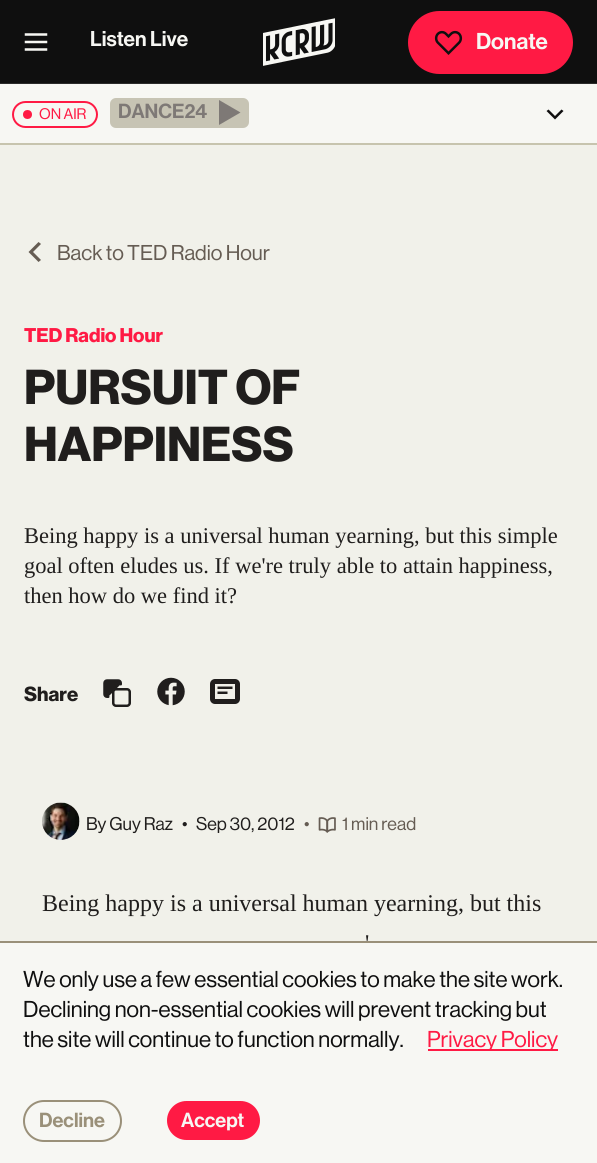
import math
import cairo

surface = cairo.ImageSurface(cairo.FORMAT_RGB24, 597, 1163)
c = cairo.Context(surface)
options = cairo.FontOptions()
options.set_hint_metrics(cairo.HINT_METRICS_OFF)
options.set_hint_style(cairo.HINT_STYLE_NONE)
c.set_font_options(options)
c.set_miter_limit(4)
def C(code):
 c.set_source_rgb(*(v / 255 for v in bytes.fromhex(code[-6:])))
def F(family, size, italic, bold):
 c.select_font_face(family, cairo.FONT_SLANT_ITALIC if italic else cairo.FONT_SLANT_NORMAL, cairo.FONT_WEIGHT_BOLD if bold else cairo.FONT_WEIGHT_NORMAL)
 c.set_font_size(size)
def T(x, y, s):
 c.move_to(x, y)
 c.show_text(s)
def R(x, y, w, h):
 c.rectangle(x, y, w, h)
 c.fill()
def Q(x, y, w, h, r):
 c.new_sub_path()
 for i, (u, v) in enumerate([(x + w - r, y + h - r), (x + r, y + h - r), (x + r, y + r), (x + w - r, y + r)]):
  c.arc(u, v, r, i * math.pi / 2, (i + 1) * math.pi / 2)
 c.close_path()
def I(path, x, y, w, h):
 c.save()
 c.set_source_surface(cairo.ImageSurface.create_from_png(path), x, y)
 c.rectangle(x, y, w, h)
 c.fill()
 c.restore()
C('f1f1ea')
c.paint()
C('0f0f0f')
R(0,0,597,83)
C('2b2b2a')
R(0,83,597,1)
I('1.png',24,33,24,18)
F('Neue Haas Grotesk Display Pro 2 Medium',21,0,0)
C('f7f7f3')
T(90,46,'Listen Live')
I('2.png',263,18,72,48)
C('ff1a44')
Q(409,12,163,61,30.5)
c.fill_preserve()
c.stroke()
I('3.png',434,30,29,25)
F('Neue Haas Grotesk Display Pro 2 Medium',22.5,0,0)
C('f7f7f3')
T(476,49,'Donate')
R(0,84,597,59)
C('c7c4ae')
R(0,143,597,2)
Q(13,102,84,25,12.5)
C('ff1a44')
c.stroke()
c.arc(27.5,114.5,4.5,0,2 * math.pi)
c.fill()
F('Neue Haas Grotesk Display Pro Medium',15,0,0)
T(39,119,'ON AIR')
C('c7c4b4')
Q(110,98,139,30,6)
c.fill()
F('Neue Haas Grotesk Display Pro 2 Medium',20,0,0)
C('7e7976')
T(118,118,'DANCE24')
c.new_path()
c.move_to(219,100)
c.line_to(219,125)
c.line_to(240.5,112.5)
c.close_path()
c.fill()
C('100f0f')
c.set_fill_rule(cairo.FILL_RULE_EVEN_ODD)
c.new_path()
c.move_to(546.5,111)
c.line_to(548.5,109.5)
c.line_to(555,116)
c.line_to(561.5,109.5)
c.line_to(563.5,111)
c.line_to(555,119.5)
c.close_path()
c.fill()
C('655c53')
c.new_path()
c.move_to(38.5,242)
c.line_to(41,244)
c.line_to(33,252)
c.line_to(41,260)
c.line_to(38.5,262)
c.line_to(28.5,252)
c.close_path()
c.fill()
F('Neue Haas Grotesk Display Pro Medium',21,0,0)
T(57,260,'Back to TED Radio Hour')
F('Neue Haas Grotesk Display Pro',19.5,0,1)
C('ff1a44')
T(24,342,'TED Radio Hour')
F('Neue Haas Grotesk Display Pro',48,0,1)
C('201e1d')
T(24,404,'PURSUIT OF')
T(24,461,'HAPPINESS')
F('Liberation Serif',22.5,0,0)
T(24,543,'Being happy is a universal human yearning, but this simple')
T(24,573,'goal often eludes us. If we\'re truly able to attain happiness,')
T(24,603,'then how do we find it?')
F('Neue Haas Grotesk Display Pro',20,0,1)
T(24,701,'Share')
I('4.png',103,679,28,28)
I('5.png',157,677,28,29)
I('6.png',210,679,30,25)
I('7.png',42,802,38,38)
F('Neue Haas Grotesk Display Pro Medium',18,0,0)
T(86,830,'By Guy Raz')
T(182,830,'•')
T(196,830,'Sep 30, 2012')
C('655c53')
T(304,830,'•')
I('8.png',318,817,18,16)
T(342,830,'1 min read')
F('Liberation Serif',24,0,0)
C('201e1d')
T(42,911,'Being happy is a universal human yearning, but this')
T(365,951,'\'')
C('f7f7f3')
R(0,943,597,220)
C('9a9079')
R(0,941,597,2)
F('Neue Haas Grotesk Display Pro Medium',22.5,0,0)
C('0f0f0f')
T(23,987,'We only use a few essential cookies to make the site work.')
T(23,1017,'Declining non-essential cookies will prevent tracking but')
T(23,1047,'the site will continue to function normally.')
C('ff1a44')
R(428,1049,130,2)
T(427,1047,'Privacy Policy')
Q(24,1101,97,40,20)
C('9a9079')
c.stroke()
F('Neue Haas Grotesk Display Pro 2 Medium',20,0,0)
T(39,1127,'Decline')
C('ff1a44')
Q(167,1101,93,39,19.5)
c.fill()
C('f7f7f3')
T(181,1127,'Accept')
surface.write_to_png('o.png')
